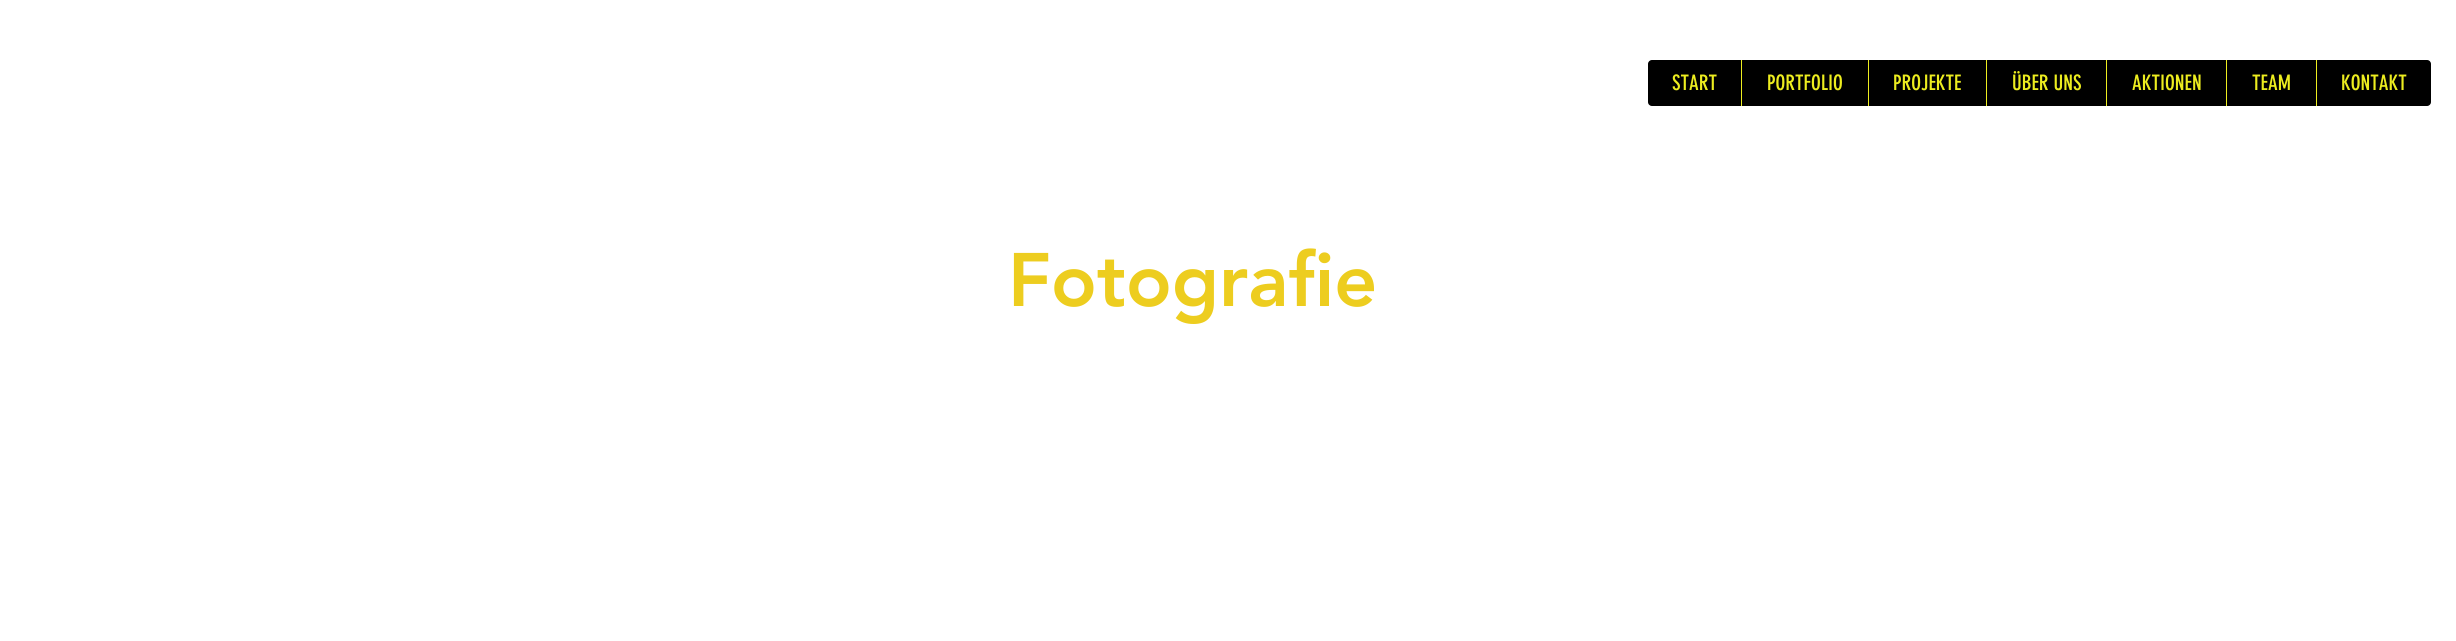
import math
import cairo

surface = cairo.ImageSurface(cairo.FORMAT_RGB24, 2456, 641)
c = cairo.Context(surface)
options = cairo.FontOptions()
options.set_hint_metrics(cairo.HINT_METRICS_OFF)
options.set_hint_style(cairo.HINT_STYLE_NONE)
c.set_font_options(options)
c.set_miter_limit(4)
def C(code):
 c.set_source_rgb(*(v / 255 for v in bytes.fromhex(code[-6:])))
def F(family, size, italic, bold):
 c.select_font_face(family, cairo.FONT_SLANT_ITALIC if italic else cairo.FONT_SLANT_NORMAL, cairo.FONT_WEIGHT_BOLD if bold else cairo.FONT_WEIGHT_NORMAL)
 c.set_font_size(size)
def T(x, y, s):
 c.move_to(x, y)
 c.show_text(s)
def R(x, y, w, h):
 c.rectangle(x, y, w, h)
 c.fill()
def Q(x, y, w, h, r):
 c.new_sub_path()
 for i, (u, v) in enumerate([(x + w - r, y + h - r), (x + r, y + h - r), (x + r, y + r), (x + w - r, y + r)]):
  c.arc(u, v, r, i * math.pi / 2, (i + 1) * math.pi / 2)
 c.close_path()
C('ffffff')
c.paint()
C('000000')
Q(1648,60,783,46,4)
c.fill()
F('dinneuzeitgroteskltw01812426',21,0,0)
C('eded1f')
T(1672,90,'START')
R(1741,60,1,46)
T(1767,90,'PORTFOLIO')
R(1868,60,1,46)
T(1893,90,'PROJEKTE')
R(1986,60,1,46)
T(2012,90,'ÜBER UNS')
R(2106,60,1,46)
T(2132,90,'AKTIONEN')
R(2226,60,1,46)
T(2252,90,'TEAM')
R(2316,60,1,46)
T(2341,90,'KONTAKT')
F('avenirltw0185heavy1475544 Black',75,0,0)
C('edcd1f')
T(1008,306,'Fotografie')
surface.write_to_png('o.png')
